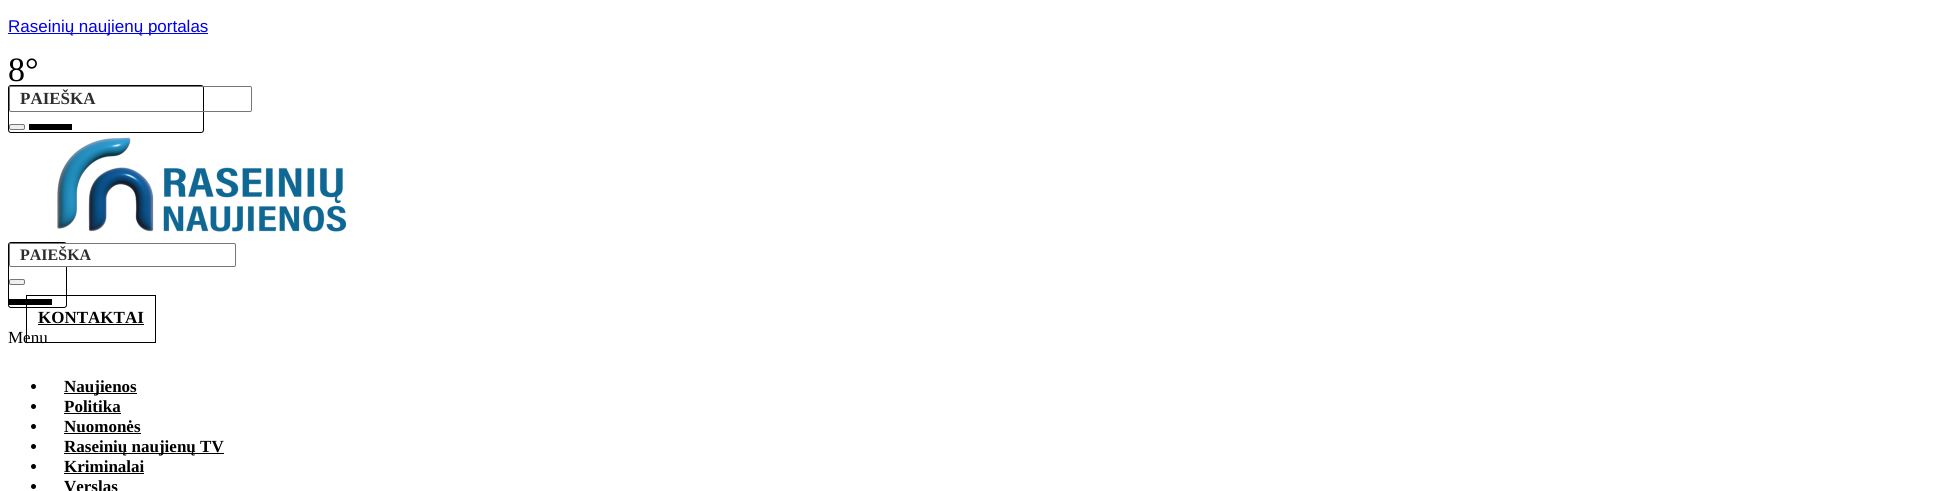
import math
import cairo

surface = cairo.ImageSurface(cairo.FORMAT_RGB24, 1935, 491)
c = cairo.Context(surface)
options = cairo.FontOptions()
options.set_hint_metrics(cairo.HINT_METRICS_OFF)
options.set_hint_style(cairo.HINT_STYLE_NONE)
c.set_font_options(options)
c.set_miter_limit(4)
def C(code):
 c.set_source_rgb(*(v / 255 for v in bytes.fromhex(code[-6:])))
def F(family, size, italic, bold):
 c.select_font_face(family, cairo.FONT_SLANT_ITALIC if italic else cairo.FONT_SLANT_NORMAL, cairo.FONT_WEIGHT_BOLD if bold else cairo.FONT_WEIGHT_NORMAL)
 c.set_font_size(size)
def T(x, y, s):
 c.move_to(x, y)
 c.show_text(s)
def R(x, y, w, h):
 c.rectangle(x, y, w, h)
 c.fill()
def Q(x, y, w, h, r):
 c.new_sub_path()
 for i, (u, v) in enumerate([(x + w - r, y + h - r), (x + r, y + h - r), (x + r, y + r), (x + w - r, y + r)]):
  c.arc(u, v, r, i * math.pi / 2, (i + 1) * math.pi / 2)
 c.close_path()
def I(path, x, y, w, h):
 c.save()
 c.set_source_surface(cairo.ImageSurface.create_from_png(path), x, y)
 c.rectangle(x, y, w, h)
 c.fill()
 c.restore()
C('ffffff')
c.paint()
C('0000ee')
R(8,33,200,1)
F('Liberation Sans',17,0,0)
T(8,32,'Raseinių naujienų portalas')
F('Liberation Serif',34,0,0)
C('000000')
T(8,81,'8°')
Q(8.5,85.5,195,47,2.5)
c.set_line_width(1)
c.stroke()
Q(9.5,86.5,242,25,1.5)
C('767676')
c.stroke()
F('Liberation Serif',17,0,1)
C('2e2e2e')
T(20,104,'PAIEŠKA')
C('efefef')
Q(9.5,124.5,15,5,1.5)
c.fill_preserve()
C('767676')
c.stroke()
C('000000')
R(29,124,43,6)
I('1.png',57,137,290,95)
Q(8.5,242.5,58,65,2.5)
c.stroke()
C('ffffff')
Q(9.5,243.5,226,23,1.5)
c.fill_preserve()
C('767676')
c.stroke()
F('Liberation Serif',16,0,1)
C('2e2e2e')
T(20,260,'PAIEŠKA')
C('efefef')
Q(9.5,279.5,15,5,1.5)
c.fill_preserve()
C('767676')
c.stroke()
C('000000')
R(9,299,43,6)
F('Liberation Serif',17,0,1)
T(38,323,'KONTAKTAI')
R(26,295,130,1)
R(26,342,12,1)
R(26,295,1,48)
R(155,295,1,48)
R(38,342,118,1)
R(38,324,106,1)
F('Liberation Serif',17,0,0)
T(8,343,'Menu')
c.new_path()
c.arc(33.5,386.5,2.5,0,2 * math.pi)
c.fill()
R(64,393,73,1)
F('Liberation Serif',17,0,1)
T(64,392,'Naujienos')
c.new_path()
c.arc(33.5,406.5,2.5,0,2 * math.pi)
c.fill()
T(64,412,'Politika')
R(64,413,57,1)
c.new_path()
c.arc(33.5,426.5,2.5,0,2 * math.pi)
c.fill()
T(64,432,'Nuomonės')
R(64,433,77,1)
c.new_path()
c.arc(33.5,446.5,2.5,0,2 * math.pi)
c.fill()
R(64,453,160,1)
T(64,452,'Raseinių naujienų TV')
c.new_path()
c.arc(33.5,466.5,2.5,0,2 * math.pi)
c.fill()
T(64,472,'Kriminalai')
R(64,473,80,1)
c.new_path()
c.arc(33.5,486.5,2.5,0,2 * math.pi)
c.fill()
T(64,492,'Verslas')
surface.write_to_png('o.png')
